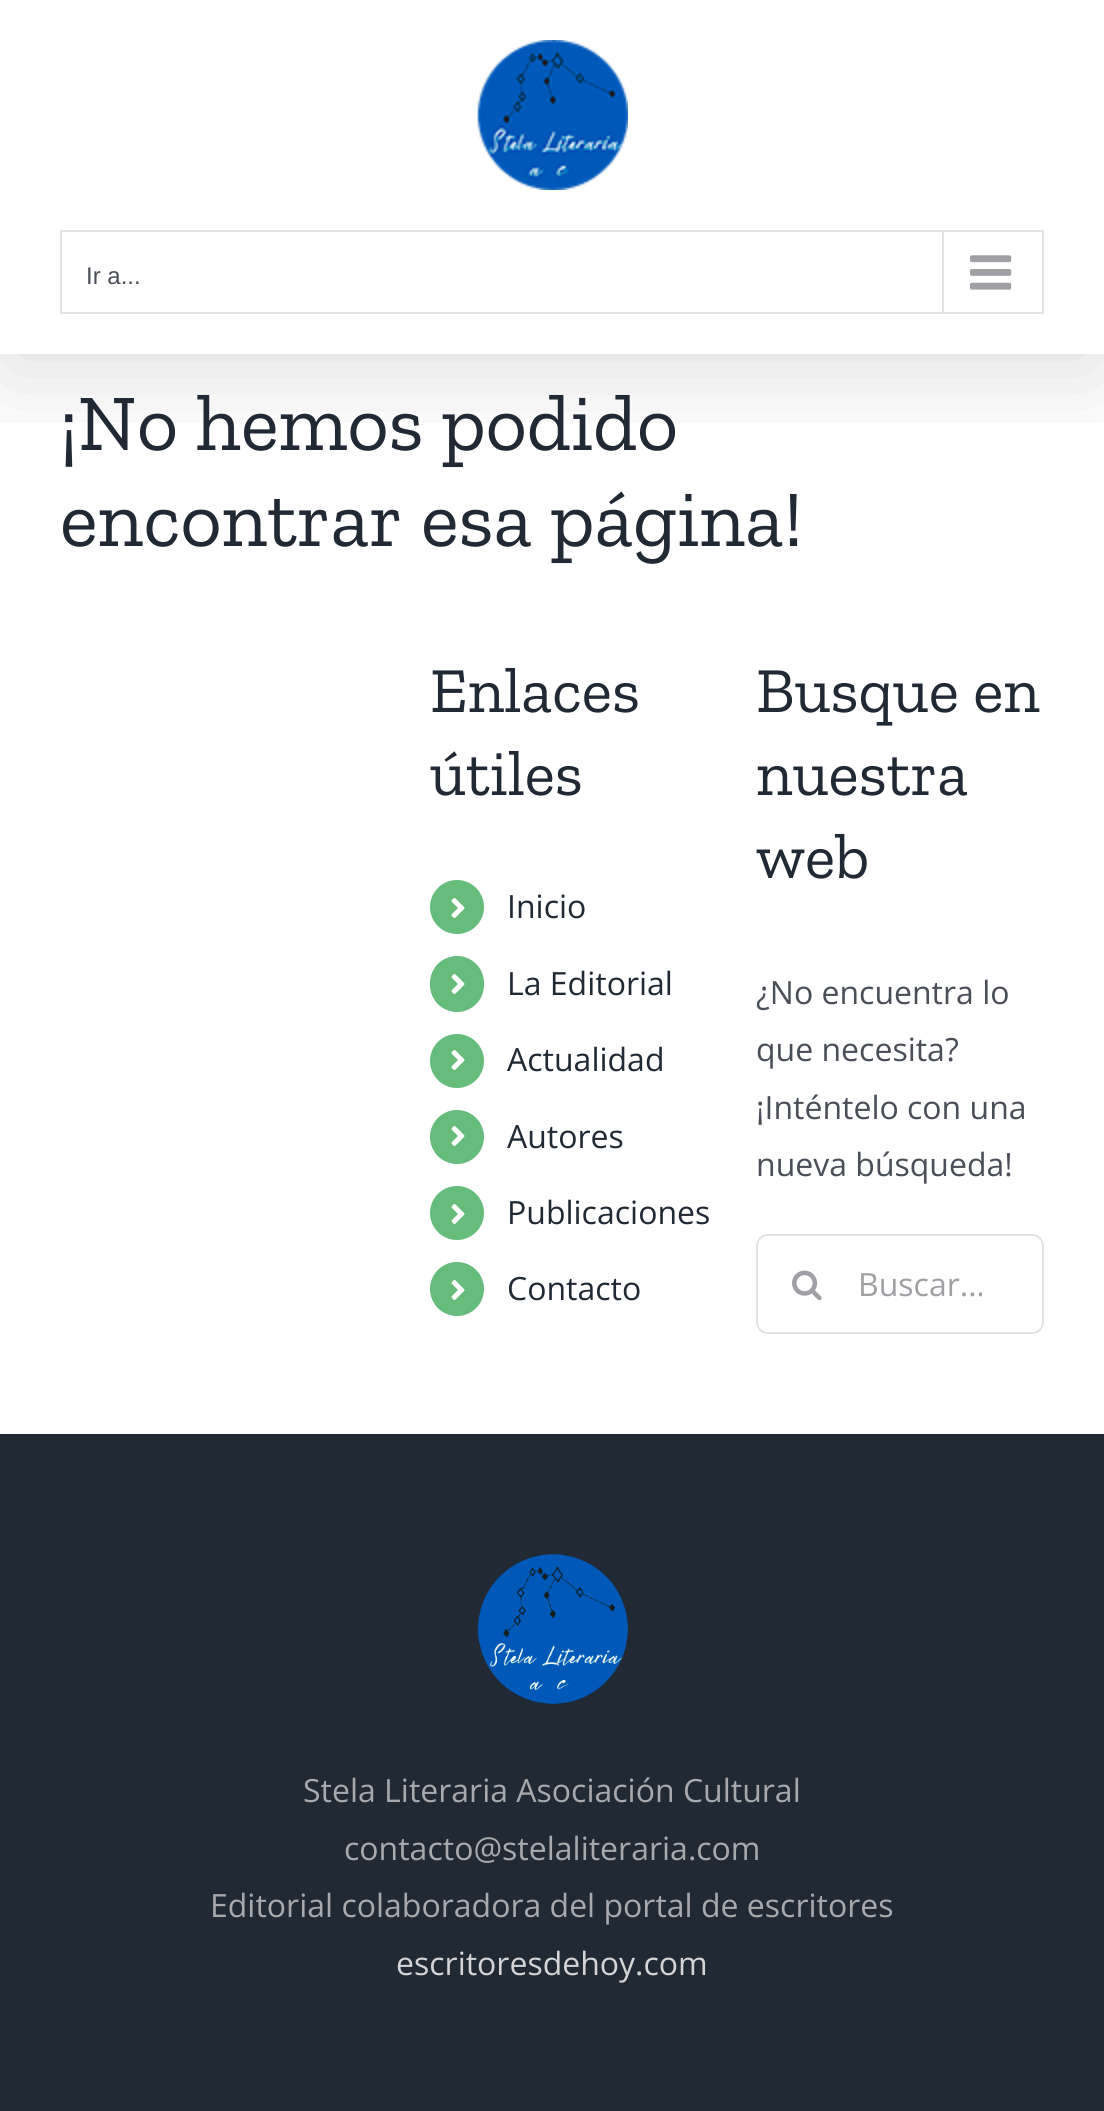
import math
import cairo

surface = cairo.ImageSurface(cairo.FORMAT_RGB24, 1104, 2111)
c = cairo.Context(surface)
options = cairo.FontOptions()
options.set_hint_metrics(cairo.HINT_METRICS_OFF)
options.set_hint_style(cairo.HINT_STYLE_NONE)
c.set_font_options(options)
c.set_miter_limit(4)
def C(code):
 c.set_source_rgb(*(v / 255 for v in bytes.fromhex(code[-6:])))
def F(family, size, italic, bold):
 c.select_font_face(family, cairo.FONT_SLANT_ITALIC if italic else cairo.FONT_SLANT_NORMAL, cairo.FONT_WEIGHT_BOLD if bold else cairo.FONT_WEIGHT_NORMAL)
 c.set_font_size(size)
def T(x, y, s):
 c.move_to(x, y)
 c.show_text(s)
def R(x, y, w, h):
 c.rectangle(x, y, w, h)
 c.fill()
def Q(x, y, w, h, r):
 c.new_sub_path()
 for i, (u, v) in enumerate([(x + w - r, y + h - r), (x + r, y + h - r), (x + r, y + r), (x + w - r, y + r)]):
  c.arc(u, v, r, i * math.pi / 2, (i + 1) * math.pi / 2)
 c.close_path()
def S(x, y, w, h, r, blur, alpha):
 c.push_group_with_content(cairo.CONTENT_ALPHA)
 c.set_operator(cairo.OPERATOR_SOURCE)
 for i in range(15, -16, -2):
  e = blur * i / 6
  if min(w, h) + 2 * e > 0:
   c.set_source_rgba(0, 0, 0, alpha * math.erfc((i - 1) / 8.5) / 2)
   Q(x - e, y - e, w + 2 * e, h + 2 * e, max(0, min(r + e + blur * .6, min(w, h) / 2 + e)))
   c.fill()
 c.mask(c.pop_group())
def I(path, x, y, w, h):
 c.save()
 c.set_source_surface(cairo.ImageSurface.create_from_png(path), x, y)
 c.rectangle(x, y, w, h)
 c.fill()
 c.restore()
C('ffffff')
c.paint()
c.save()
c.rectangle(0,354,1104,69)
c.clip()
C('000000')
S(4,24,1096,346,0,50,.14)
c.restore()
I('1.png',477,40,151,150)
c.rectangle(61,231,982,82)
C('e2e2e2')
c.stroke()
F('Liberation Sans',24,0,0)
C('4a4e57')
T(86,284,'Ir a...')
C('e2e2e2')
R(942,232,2,80)
I('2.png',970,255,42,35)
F('Zilla Slab',80,0,0)
C('212934')
T(60,450,'¡No hemos podido')
T(60,546,'encontrar esa página!')
F('Zilla Slab',64,0,0)
T(430,712,'Enlaces')
T(430,795,'útiles')
C('65bc7b')
c.new_path()
c.arc(457,907,27,0,2 * math.pi)
c.fill()
I('3.png',451,898,14,20)
F('Open Sans',32,0,0)
C('212934')
T(507,918,'Inicio')
C('65bc7b')
Q(430,956,54,56,27)
c.fill()
I('3.png',451,974,14,20)
C('212934')
T(507,995,'La Editorial')
C('65bc7b')
c.new_path()
c.arc(457,1061,27,0,2 * math.pi)
c.fill()
I('3.png',451,1050,14,20)
C('212934')
T(507,1071,'Actualidad')
C('65bc7b')
c.new_path()
c.arc(457,1137,27,0,2 * math.pi)
c.fill()
I('3.png',451,1126,14,20)
C('212934')
T(507,1148,'Autores')
C('65bc7b')
c.new_path()
c.arc(457,1213,27,0,2 * math.pi)
c.fill()
I('3.png',451,1204,14,20)
C('212934')
T(507,1224,'Publicaciones')
C('65bc7b')
c.new_path()
c.arc(457,1289,27,0,2 * math.pi)
c.fill()
I('3.png',451,1280,14,20)
C('212934')
T(507,1300,'Contacto')
F('Zilla Slab',64,0,0)
T(756,712,'Busque en')
T(756,795,'nuestra')
T(756,878,'web')
F('Open Sans',32,0,0)
C('4a4e57')
T(756,1004,'¿No encuentra lo')
T(756,1061,'que necesita?')
T(756,1119,'¡Inténtelo con una')
T(756,1176,'nueva búsqueda!')
Q(757,1235,286,98,11)
C('e2e2e2')
c.stroke()
I('4.png',792,1270,30,31)
c.save()
c.rectangle(858,1262,124,44)
c.clip()
C('9ea0a4')
T(858,1296,'Buscar...')
c.restore()
C('212934')
R(0,1434,1104,677)
I('5.png',477,1553,151,152)
C('a6a9ae')
T(303,1802,'Stela Literaria Asociación Cultural')
T(344,1860,'contacto@stelaliteraria.com')
T(210,1917,'Editorial colaboradora del portal de escritores')
C('d3d4d6')
T(396,1975,'escritoresdehoy.com')
surface.write_to_png('o.png')
